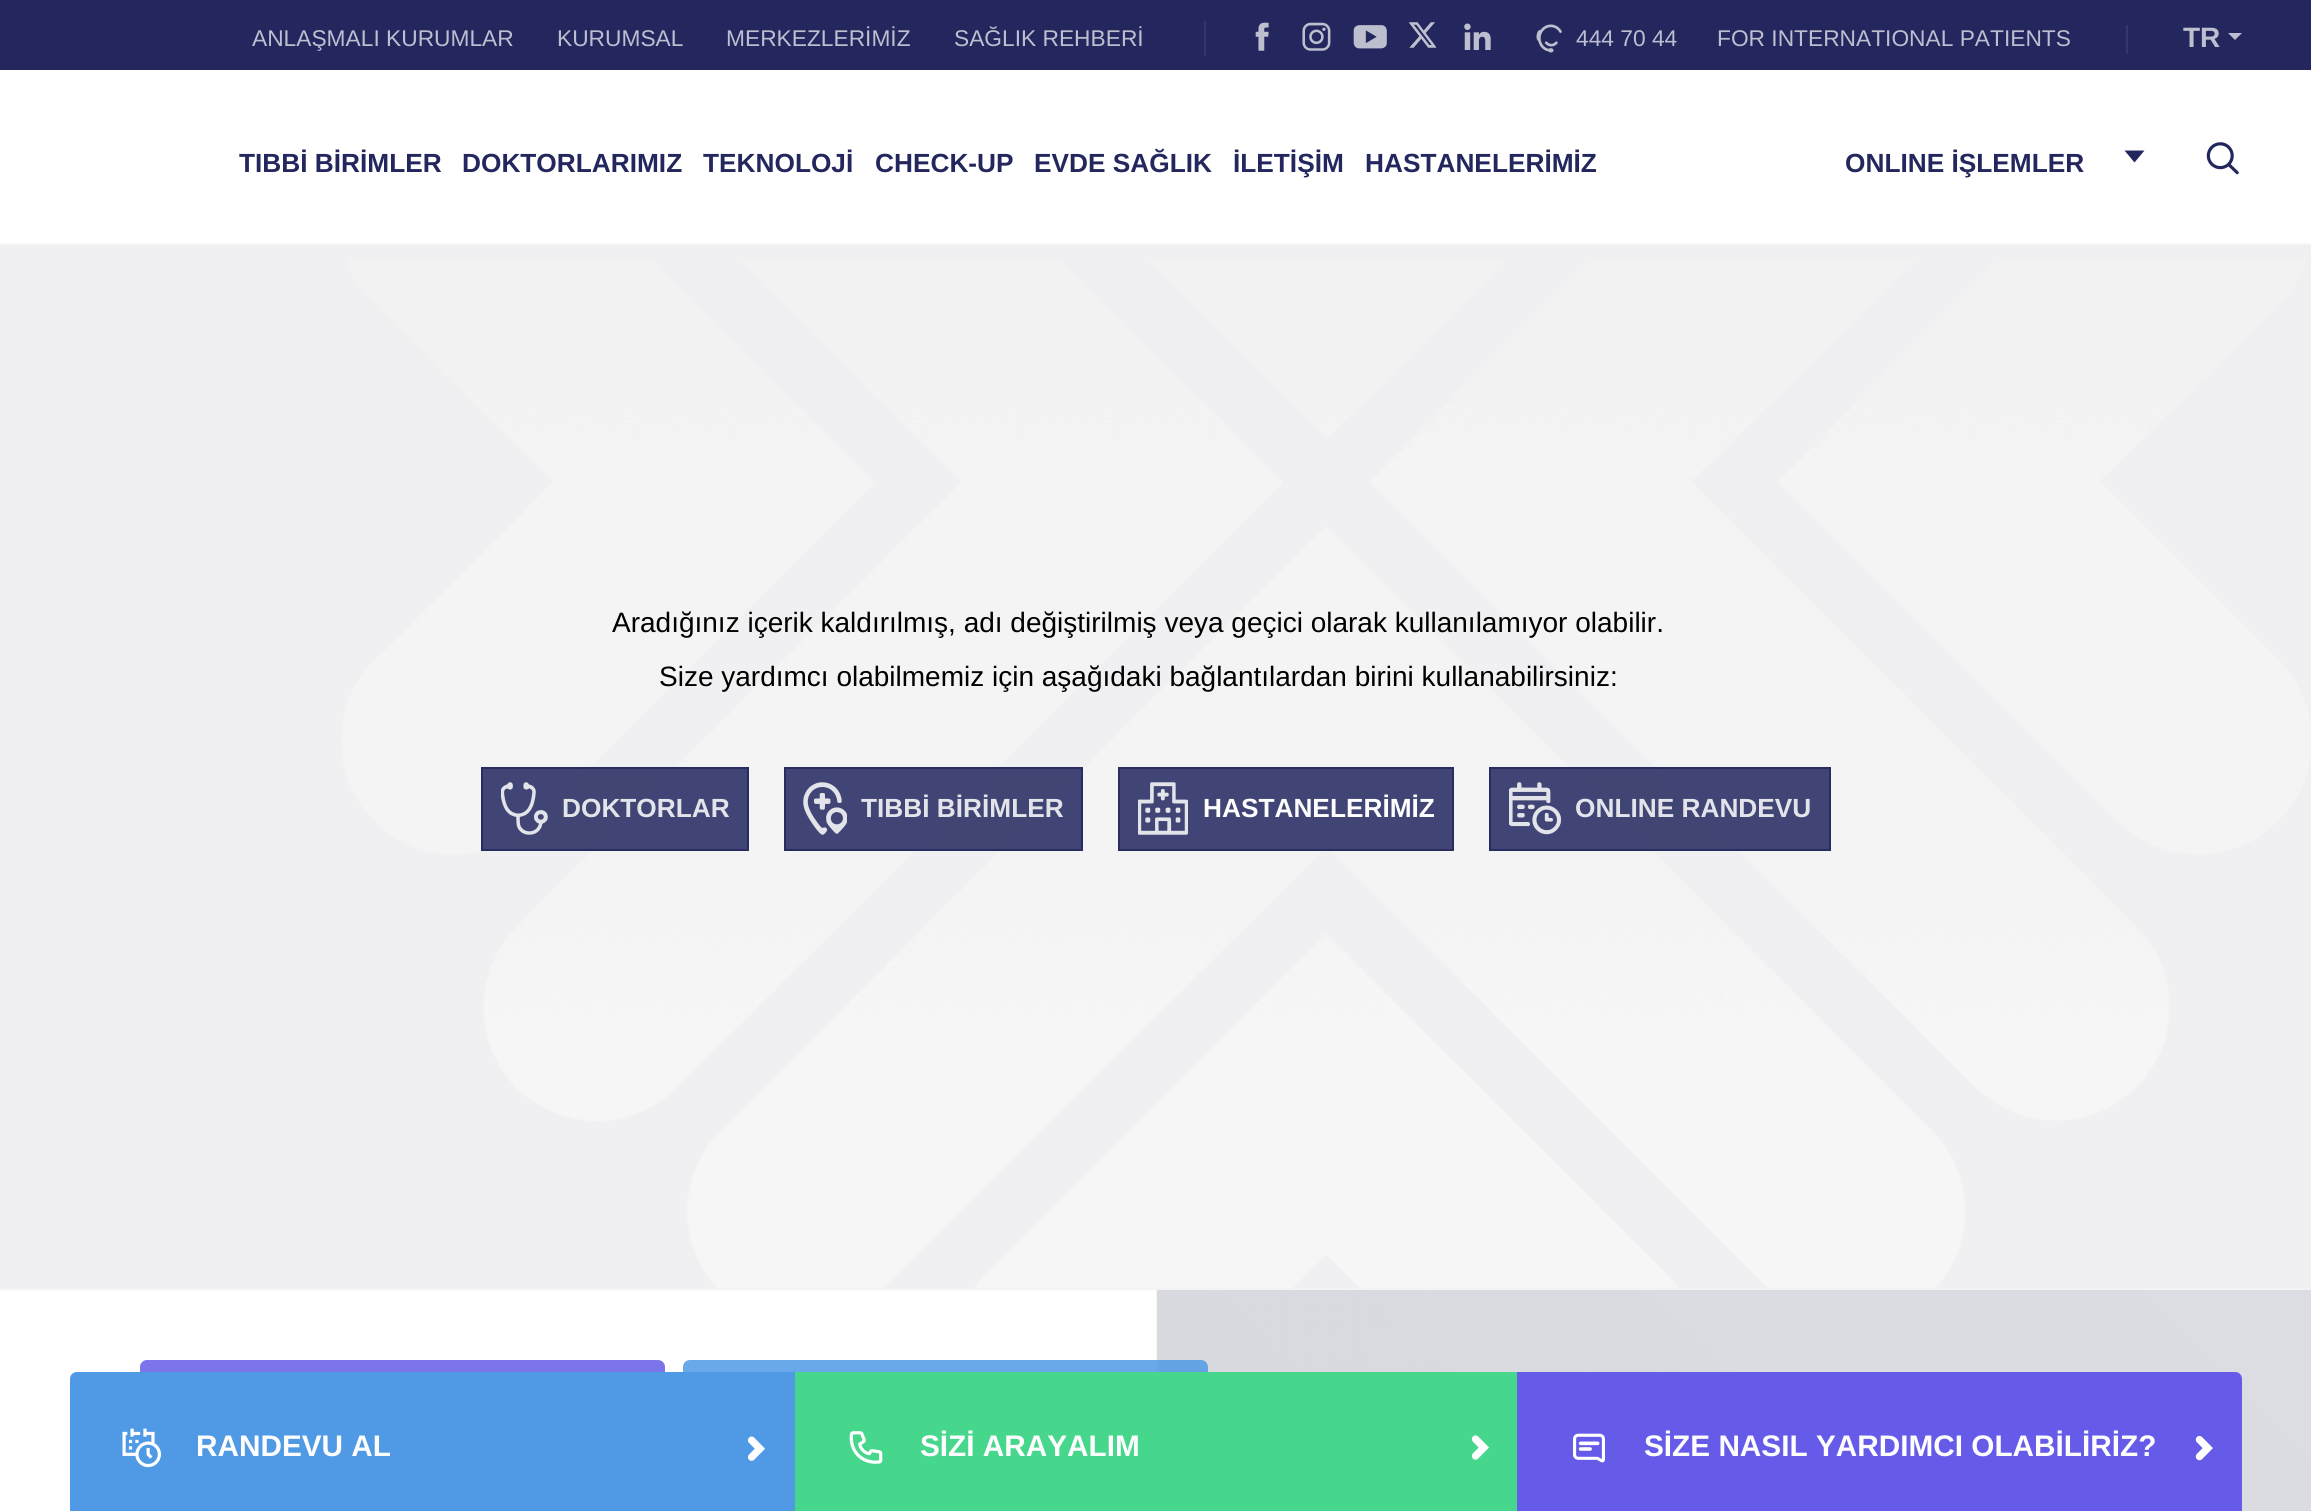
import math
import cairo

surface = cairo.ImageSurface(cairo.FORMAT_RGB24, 2311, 1511)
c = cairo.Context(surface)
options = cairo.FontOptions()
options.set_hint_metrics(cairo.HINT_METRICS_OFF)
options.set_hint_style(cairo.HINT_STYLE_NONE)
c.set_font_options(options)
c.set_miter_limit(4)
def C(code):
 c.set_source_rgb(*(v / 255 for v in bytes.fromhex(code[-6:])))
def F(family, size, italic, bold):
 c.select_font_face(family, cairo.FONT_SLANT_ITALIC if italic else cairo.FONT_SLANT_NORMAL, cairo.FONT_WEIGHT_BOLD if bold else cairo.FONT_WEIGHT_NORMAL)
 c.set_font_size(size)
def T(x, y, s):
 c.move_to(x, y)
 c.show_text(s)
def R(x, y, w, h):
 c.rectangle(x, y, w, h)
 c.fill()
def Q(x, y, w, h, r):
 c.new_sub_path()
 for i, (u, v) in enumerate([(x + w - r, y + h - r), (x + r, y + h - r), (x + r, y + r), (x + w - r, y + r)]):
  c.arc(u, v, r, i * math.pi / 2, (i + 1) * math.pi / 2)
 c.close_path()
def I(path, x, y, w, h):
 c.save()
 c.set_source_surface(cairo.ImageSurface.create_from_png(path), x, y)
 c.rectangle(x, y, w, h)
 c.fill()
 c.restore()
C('ffffff')
c.paint()
C('23275e')
R(0,0,2311,70)
F('Liberation Sans',22.75,0,0)
C('bdbecf')
T(252,46,'ANLAŞMALI KURUMLAR')
T(557,46,'KURUMSAL')
T(726,46,'MERKEZLERİMİZ')
T(954,46,'SAĞLIK REHBERİ')
C('333769')
R(1204,21,2,35)
I('1.png',1255,22,14,29)
I('2.png',1302,22,29,29)
I('3.png',1353,25,34,24)
I('4.png',1409,22,28,26)
I('5.png',1464,23,27,27)
I('6.png',1536,24,26,29)
C('bdbecf')
T(1576,46,'444 70 44')
T(1717,46,'FOR INTERNATIONAL PATIENTS')
C('333769')
R(2126,25,2,29)
F('Liberation Sans',28,0,1)
C('bdbecf')
T(2183,47,'TR')
c.new_path()
c.move_to(2228,33)
c.line_to(2242,33)
c.line_to(2235,40)
c.close_path()
c.fill()
C('f7f7fa')
R(0,243,2311,2)
F('Liberation Sans',26.25,0,1)
C('23275e')
T(239,172,'TIBBİ BİRİMLER')
T(462,172,'DOKTORLARIMIZ')
T(703,172,'TEKNOLOJİ')
T(875,172,'CHECK-UP')
T(1034,172,'EVDE SAĞLIK')
T(1233,172,'İLETİŞİM')
T(1365,172,'HASTANELERİMİZ')
T(1845,172,'ONLINE İŞLEMLER')
c.new_path()
c.move_to(2124.5,150.5)
c.line_to(2134.5,162.5)
c.line_to(2144.5,150.5)
c.close_path()
c.fill()
I('7.png',2206,142,33,33)
C('f0f0f2')
R(0,245,2311,1043)
I('8.png',342,259,1969,1029)
F('Liberation Sans',28,0,0)
C('000000')
T(612,632,'Aradığınız içerik kaldırılmış, adı değiştirilmiş veya geçici olarak kullanılamıyor olabilir.')
T(659,686,'Size yardımcı olabilmemiz için aşağıdaki bağlantılardan birini kullanabilirsiniz:')
c.set_source_rgba(0.137,0.153,0.369,0.85)
c.rectangle(482,768,266,82)
c.fill_preserve()
C('282c61')
c.stroke()
I('9.png',501,782,47,53)
F('Liberation Sans',26.25,0,1)
C('e3e3ea')
T(562,817,'DOKTORLAR')
c.set_source_rgba(0.137,0.153,0.369,0.85)
c.rectangle(785,768,297,82)
c.fill_preserve()
C('282c61')
c.stroke()
I('10.png',803,782,44,53)
C('e3e3ea')
T(861,817,'TIBBİ BİRİMLER')
c.set_source_rgba(0.137,0.153,0.369,0.85)
c.rectangle(1119,768,334,82)
c.fill_preserve()
C('282c61')
c.stroke()
I('11.png',1138,782,50,53)
C('fdfdfe')
T(1203,817,'HASTANELERİMİZ')
c.set_source_rgba(0.137,0.153,0.369,0.85)
c.rectangle(1490,768,340,82)
c.fill_preserve()
C('282c61')
c.stroke()
I('12.png',1509,782,52,53)
C('e3e3ea')
T(1575,817,'ONLINE RANDEVU')
C('f3f3f4')
R(0,1288,2311,2)
C('7c74eb')
Q(140,1360,525,84,7)
c.fill()
I('13.png',1156,1290,1155,221)
c.set_source_rgba(0.314,0.604,0.898,0.85)
Q(683,1360,525,84,7)
c.fill()
C('509ae5')
c.new_path()
c.move_to(77,1372)
c.line_to(795,1372)
c.line_to(795,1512)
c.line_to(70,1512)
c.line_to(70,1379)
c.curve_to(70,1375,73,1372,77,1372)
c.close_path()
c.fill()
I('14.png',122,1428,39,40)
c.save()
c.rectangle(196,1425,194,45)
c.clip()
F('Liberation Sans',29.75,0,1)
C('fdfdfe')
T(196,1456,'RANDEVU AL')
c.restore()
I('15.png',747,1436,18,25)
C('46d78d')
R(795,1372,722,139)
I('16.png',849,1431,34,33)
F('Liberation Sans',29.75,0,1)
C('fdfdfe')
T(920,1456,'SİZİ ARAYALIM')
I('17.png',1471,1435,18,25)
C('655be8')
c.new_path()
c.move_to(1517,1372)
c.line_to(2235,1372)
c.curve_to(2239,1372,2242,1375,2242,1379)
c.line_to(2242,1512)
c.line_to(1517,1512)
c.close_path()
c.fill()
I('18.png',1573,1433,32,30)
C('fdfdfe')
T(1644,1456,'SİZE NASIL YARDIMCI OLABİLİRİZ?')
I('19.png',2195,1435,18,26)
surface.write_to_png('o.png')
